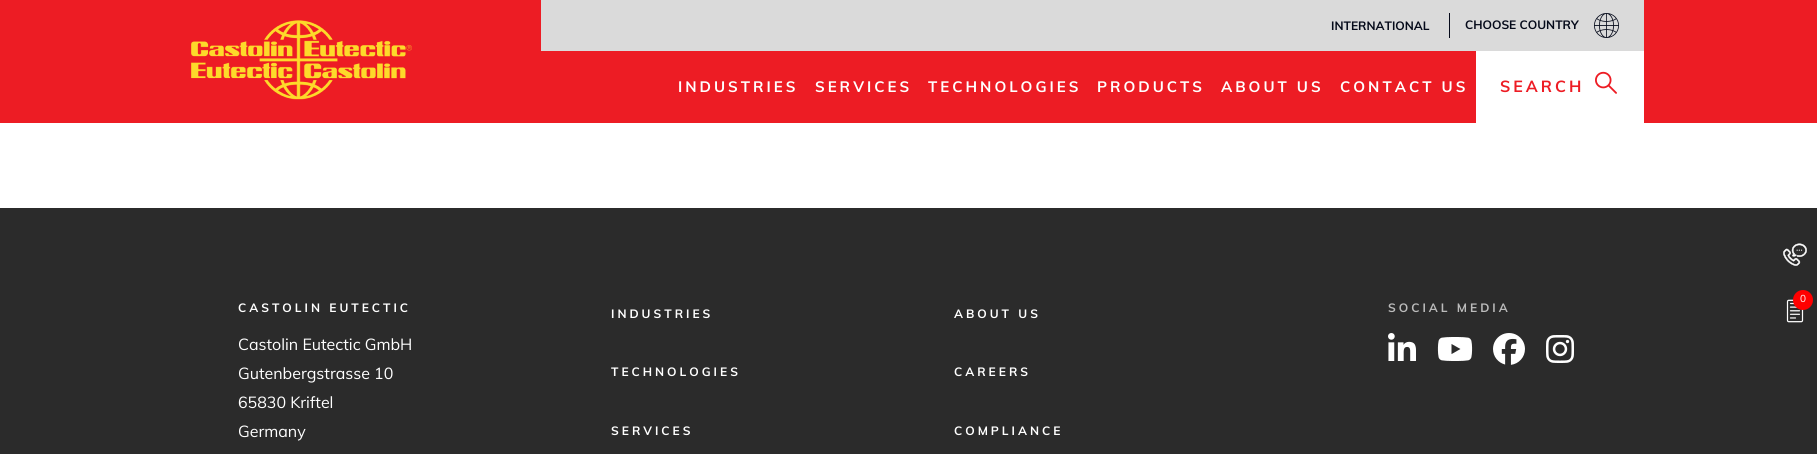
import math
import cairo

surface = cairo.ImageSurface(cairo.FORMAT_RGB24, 1817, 454)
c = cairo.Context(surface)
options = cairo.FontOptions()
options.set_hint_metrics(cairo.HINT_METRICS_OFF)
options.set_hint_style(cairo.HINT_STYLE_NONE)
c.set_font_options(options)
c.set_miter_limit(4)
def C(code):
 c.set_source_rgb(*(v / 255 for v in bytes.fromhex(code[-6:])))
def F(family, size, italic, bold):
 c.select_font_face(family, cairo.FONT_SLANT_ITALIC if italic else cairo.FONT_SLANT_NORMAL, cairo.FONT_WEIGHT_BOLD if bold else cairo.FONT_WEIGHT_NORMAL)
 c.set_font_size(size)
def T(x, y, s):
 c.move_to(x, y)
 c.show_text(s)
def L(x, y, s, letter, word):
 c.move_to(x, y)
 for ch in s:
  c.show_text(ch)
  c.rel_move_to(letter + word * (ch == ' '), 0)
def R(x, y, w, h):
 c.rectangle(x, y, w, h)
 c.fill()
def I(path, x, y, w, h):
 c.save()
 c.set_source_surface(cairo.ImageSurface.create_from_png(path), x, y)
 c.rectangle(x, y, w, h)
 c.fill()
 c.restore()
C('2b2b2b')
c.paint()
C('ed1c24')
R(0,0,1817,123)
I('1.png',191,20,221,80)
C('dadada')
R(541,0,1103,51)
F('Muli',12,0,1)
C('050a1a')
T(1331,30,'INTERNATIONAL')
R(1449,13,1,25)
T(1465,29,'CHOOSE COUNTRY')
I('2.png',1594,13,25,25)
F('Muli',15,0,1)
C('ffffff')
L(678,92,'INDUSTRIES',3,0)
L(815,92,'SERVICES',3,0)
L(928,92,'TECHNOLOGIES',3,0)
L(1097,92,'PRODUCTS',3,0)
L(1221,92,'ABOUT US',3,0)
L(1340,92,'CONTACT US',3,0)
R(1476,51,168,72)
F('Muli',16,0,1)
C('ed1c24')
L(1500,92,'SEARCH',3,0)
I('3.png',1595,71,22,23)
C('ffffff')
R(0,123,1817,85)
I('4.png',1783,243,24,23)
I('5.png',1786,299,18,24)
C('ff0000')
c.arc(1803,300,10,0,2 * math.pi)
c.fill()
F('Muli',10,0,0)
C('ffffff')
T(1800,302,'0')
F('Muli',12,0,1)
L(238,312,'CASTOLIN EUTECTIC',3,0)
F('Muli',16,0,0)
T(238,350,'Castolin Eutectic GmbH')
T(238,379,'Gutenbergstrasse 10')
T(238,408,'65830 Kriftel')
T(238,437,'Germany')
F('Muli',12,0,1)
C('bbbbbb')
L(1388,312,'SOCIAL MEDIA',3,0)
I('6.png',1388,333,28,28)
I('7.png',1437,337,36,24)
I('8.png',1493,333,32,32)
I('9.png',1546,335,28,28)
C('ffffff')
L(611,318,'INDUSTRIES',3,0)
L(611,376,'TECHNOLOGIES',3,0)
L(611,435,'SERVICES',3,0)
L(954,318,'ABOUT US',3,0)
L(954,376,'CAREERS',3,0)
L(954,435,'COMPLIANCE',3,0)
surface.write_to_png('o.png')
